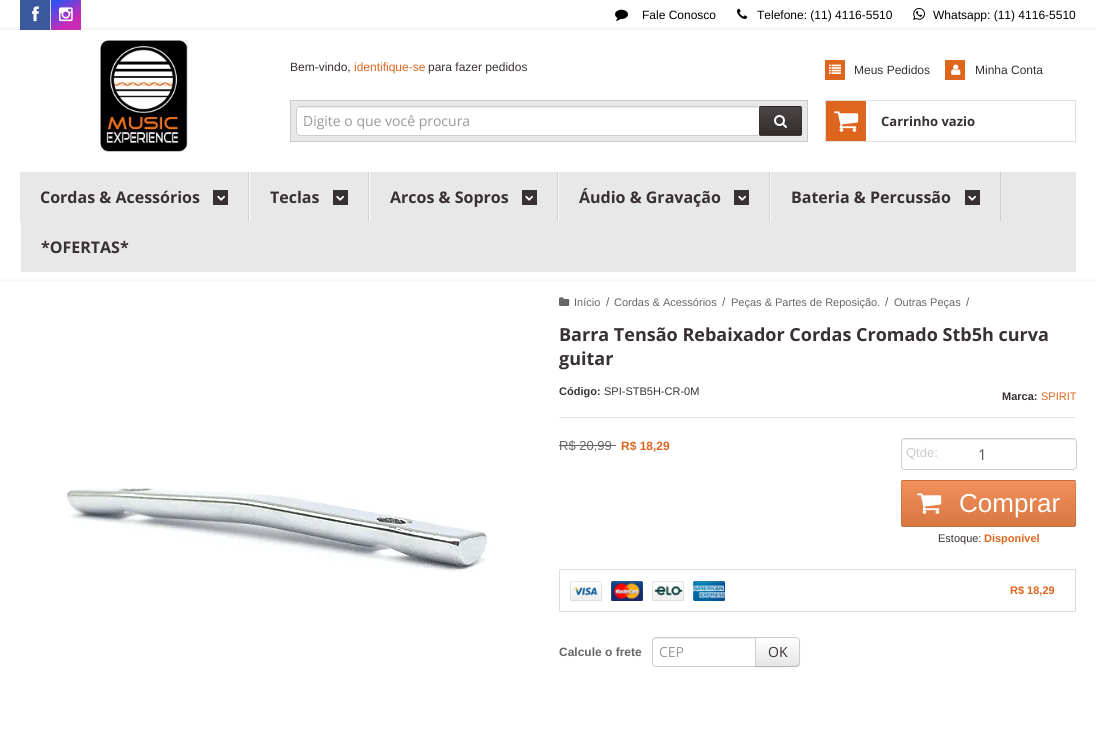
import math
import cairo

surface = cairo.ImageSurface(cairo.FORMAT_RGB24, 1096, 731)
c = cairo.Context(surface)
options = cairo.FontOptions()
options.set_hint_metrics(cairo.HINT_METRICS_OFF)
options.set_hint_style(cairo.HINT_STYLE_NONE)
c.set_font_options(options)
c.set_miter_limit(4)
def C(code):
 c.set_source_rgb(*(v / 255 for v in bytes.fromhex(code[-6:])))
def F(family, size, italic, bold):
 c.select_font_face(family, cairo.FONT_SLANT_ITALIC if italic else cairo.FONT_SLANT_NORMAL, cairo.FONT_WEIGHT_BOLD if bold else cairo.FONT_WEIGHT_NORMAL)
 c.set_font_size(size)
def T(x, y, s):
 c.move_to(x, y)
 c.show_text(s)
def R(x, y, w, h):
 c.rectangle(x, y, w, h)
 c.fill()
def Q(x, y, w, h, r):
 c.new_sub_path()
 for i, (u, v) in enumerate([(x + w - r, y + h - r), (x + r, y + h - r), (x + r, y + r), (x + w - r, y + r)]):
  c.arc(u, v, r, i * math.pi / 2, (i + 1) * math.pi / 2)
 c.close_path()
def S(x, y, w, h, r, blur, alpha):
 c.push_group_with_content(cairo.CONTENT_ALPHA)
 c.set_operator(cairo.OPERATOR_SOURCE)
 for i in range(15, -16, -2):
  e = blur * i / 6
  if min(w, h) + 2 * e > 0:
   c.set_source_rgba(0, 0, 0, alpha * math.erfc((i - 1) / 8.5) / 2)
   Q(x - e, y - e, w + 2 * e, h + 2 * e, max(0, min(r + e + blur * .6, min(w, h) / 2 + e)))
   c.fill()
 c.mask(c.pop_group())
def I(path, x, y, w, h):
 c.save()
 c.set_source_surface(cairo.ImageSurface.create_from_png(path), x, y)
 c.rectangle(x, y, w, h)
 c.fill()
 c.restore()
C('ffffff')
c.paint()
c.save()
c.rectangle(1,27,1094,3)
c.clip()
C('000000')
S(0,33,1096,252,0,5,.15)
c.restore()
C('3a589b')
R(20,0,30,30)
I('1.png',32,6,7,16)
C('dddddd')
R(50,0,1,30)
gradient = cairo.LinearGradient(54,-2.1,78,32)
gradient.add_color_stop_rgba(.1,0.188,0.318,0.945,1)
gradient.add_color_stop_rgba(.7,0.788,0.169,0.718,1)
c.set_source(gradient)
R(51,0,30,30)
I('2.png',59,7,14,15)
I('3.png',615,9,13,12)
F('Liberation Sans',12,0,0)
C('000000')
T(642,19,'Fale Conosco')
I('4.png',737,8,11,11)
T(757,19,'Telefone: (11) 4116-5510')
I('5.png',913,8,12,12)
T(933,19,'Whatsapp: (11) 4116-5510')
I('6.png',100,40,88,112)
C('383131')
T(290,71,'Bem-vindo,')
C('de651e')
T(354,71,'identifique-se')
C('383131')
T(428,71,'para fazer pedidos')
C('de651e')
R(825,60,20,20)
I('7.png',829,64,12,10)
C('383131')
T(854,74,'Meus Pedidos')
C('de651e')
R(945,60,20,20)
I('8.png',951,64,10,11)
C('383131')
T(975,74,'Minha Conta')
C('e8e8e8')
c.rectangle(290.5,100.5,517,41)
c.fill_preserve()
C('cacaca')
c.set_line_width(1)
c.stroke()
C('ffffff')
Q(296,106,490,30,4)
c.fill()
C('ececec')
c.new_path()
c.move_to(300,108)
c.line_to(782,108)
c.curve_to(784,108,785,109,785,111)
c.line_to(785,110)
c.curve_to(785,108,784,107,782,107)
c.line_to(300,107)
c.curve_to(298,107,297,108,297,110)
c.line_to(297,111)
c.curve_to(297,109,298,108,300,108)
c.close_path()
c.fill()
Q(296.5,106.5,489,29,3.5)
C('cccccc')
c.stroke()
F('Open Sans',14,0,0)
C('999999')
T(303,126,'Digite o que você procura')
C('383131')
Q(759,106,43,30,2)
c.fill()
gradient = cairo.LinearGradient(781,79,781,107)
gradient.add_color_stop_rgba(0,1,1,1,.1)
gradient.add_color_stop_rgba(1,0,0,0,.1)
c.set_source(gradient)
R(759,106,43,1)
gradient = cairo.LinearGradient(781,107,781,135)
gradient.add_color_stop_rgba(0,1,1,1,.1)
gradient.add_color_stop_rgba(1,0,0,0,.1)
c.set_source(gradient)
R(759,107,43,28)
gradient = cairo.LinearGradient(781,135,781,163)
gradient.add_color_stop_rgba(0,1,1,1,.1)
gradient.add_color_stop_rgba(1,0,0,0,.1)
c.set_source(gradient)
R(759,135,43,1)
Q(759.5,106.5,42,29,1.5)
c.set_source_rgba(0,0,0,0.13)
c.stroke()
I('9.png',774,115,13,13)
c.rectangle(825.5,100.5,250,41)
C('e0e0e0')
c.stroke()
C('de651e')
R(826,101,40,40)
I('10.png',834,111,25,21)
F('Open Sans',13,0,1)
C('383131')
T(881,126,'Carrinho vazio')
C('e8e8e8')
R(20,172,1056,100)
C('d1d1d1')
R(248,172,1,50)
F('Open Sans',16,0,1)
C('383131')
T(40,203,'Cordas & Acessórios')
R(213,190,15,15)
I('11.png',217,195,8,6)
C('d1d1d1')
R(368,172,1,50)
C('fafafa')
R(249,172,1,50)
C('383131')
T(270,203,'Teclas')
R(333,190,15,15)
I('11.png',336,195,8,6)
C('d1d1d1')
R(557,172,1,50)
C('fafafa')
R(369,172,1,50)
C('383131')
T(390,203,'Arcos & Sopros')
R(522,190,15,15)
I('11.png',525,195,8,6)
C('d1d1d1')
R(769,172,1,50)
C('fafafa')
R(558,172,1,50)
C('383131')
T(579,203,'Áudio & Gravação')
R(734,190,15,15)
I('11.png',738,195,8,6)
C('d1d1d1')
R(1000,172,1,50)
C('fafafa')
R(770,172,1,50)
C('383131')
T(791,203,'Bateria & Percussão')
R(965,190,15,15)
I('11.png',968,195,8,6)
C('000000')
S(0,285,1096,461,0,5,.15)
C('fafafa')
R(20,222,1,50)
C('383131')
T(41,253,'*OFERTAS*')
C('ffffff')
R(0,282,1096,449)
I('12.png',65,488,424,84)
I('13.png',559,297,11,9)
F('Liberation Sans',11,0,0)
C('666666')
T(574,306,'Início')
F('Liberation Sans',12,0,0)
T(606,306,'/')
F('Liberation Sans',11,0,0)
T(614,306,'Cordas & Acessórios')
F('Liberation Sans',12,0,0)
T(722,306,'/')
F('Liberation Sans',11,0,0)
T(731,306,'Peças & Partes de Reposição.')
F('Liberation Sans',12,0,0)
T(885,306,'/')
F('Liberation Sans',11,0,0)
T(894,306,'Outras Peças')
F('Liberation Sans',12,0,0)
T(966,306,'/')
F('Open Sans',18,0,1)
C('383131')
T(559,341,'Barra Tensão Rebaixador Cordas Cromado Stb5h curva')
T(559,365,'guitar')
C('e6e6e6')
R(559,417,517,1)
F('Liberation Sans',11,0,1)
C('383131')
T(559,395,'Código:')
F('Liberation Sans',11,0,0)
T(604,395,'SPI-STB5H-CR-0M')
F('Liberation Sans',11,0,1)
T(1002,400,'Marca:')
F('Liberation Sans',11,0,0)
C('de651e')
T(1041,400,'SPIRIT')
F('Liberation Sans',13,0,0)
C('666666')
T(559,450,'R$ 20,99')
R(559,445,57,1)
F('Liberation Sans',12,0,1)
C('de651e')
T(621,450,'R$ 18,29')
C('ececec')
c.new_path()
c.move_to(905,440)
c.line_to(1073,440)
c.curve_to(1075,440,1076,441,1076,443)
c.line_to(1076,442)
c.curve_to(1076,440,1075,439,1073,439)
c.line_to(905,439)
c.curve_to(903,439,902,440,902,442)
c.line_to(902,443)
c.curve_to(902,441,903,440,905,440)
c.close_path()
c.fill()
Q(901.5,438.5,175,31,3.5)
C('cccccc')
c.stroke()
F('Liberation Sans',13,0,0)
T(906,457,'Qtde:')
F('Open Sans',15,0,0)
C('555555')
T(978,460,'1')
C('f08448')
Q(901,480,175,47,2)
c.fill()
gradient = cairo.LinearGradient(989,436,989,481)
gradient.add_color_stop_rgba(0,1,1,1,.1)
gradient.add_color_stop_rgba(1,0,0,0,.1)
c.set_source(gradient)
R(901,480,175,1)
gradient = cairo.LinearGradient(989,481,989,526)
gradient.add_color_stop_rgba(0,1,1,1,.1)
gradient.add_color_stop_rgba(1,0,0,0,.1)
c.set_source(gradient)
R(901,481,175,45)
gradient = cairo.LinearGradient(989,526,989,571)
gradient.add_color_stop_rgba(0,1,1,1,.1)
gradient.add_color_stop_rgba(1,0,0,0,.1)
c.set_source(gradient)
R(901,526,175,1)
c.new_path()
c.move_to(1075,526)
c.line_to(1074,526.5)
c.line_to(903,526.5)
c.line_to(902,526)
c.set_source_rgba(0,0,0,0.2)
c.stroke()
c.new_path()
c.move_to(902,526)
c.curve_to(900.5,524.5,901.5,512.5,901.5,510.5)
c.line_to(901.5,489)
c.curve_to(901.5,486,900,480.5,903,480.5)
c.line_to(1074,480.5)
c.curve_to(1077,480.5,1075.5,486,1075.5,489)
c.line_to(1075.5,510.5)
c.curve_to(1075.5,512.5,1076.5,524.5,1075,526)
c.set_source_rgba(0,0,0,0.1)
c.stroke()
I('14.png',917,493,25,21)
F('Liberation Sans',26,0,0)
C('ffffff')
T(959,512,'Comprar')
F('Liberation Sans',11,0,0)
C('383131')
T(938,542,'Estoque:')
F('Liberation Sans',11,0,1)
C('de651e')
T(984,542,'Disponível')
c.rectangle(559.5,569.5,516,42)
C('dedede')
c.stroke()
I('15.png',570,581,155,20)
C('de651e')
T(1010,594,'R$ 18,29')
F('Liberation Sans',12,0,1)
C('666666')
T(559,656,'Calcule o frete')
C('000000')
S(755,638,45,30,4,1,.05)
C('f5f5f5')
c.new_path()
c.move_to(755,637)
c.line_to(796,637)
c.curve_to(798,637,800,639,800,641)
c.line_to(800,663)
c.curve_to(800,665,798,667,796,667)
c.line_to(755,667)
c.close_path()
c.fill()
c.save()
c.new_path()
c.move_to(755,637)
c.line_to(796,637)
c.curve_to(798,637,800,639,800,641)
c.line_to(800,663)
c.curve_to(800,665,798,667,796,667)
c.line_to(755,667)
c.close_path()
c.clip()
gradient = cairo.LinearGradient(778,638,778,666)
gradient.add_color_stop_rgba(0,1,1,1,1)
gradient.add_color_stop_rgba(1,0.902,0.902,0.902,1)
c.set_source(gradient)
R(756,638,44,28)
c.restore()
C('cccccc')
c.new_path()
c.move_to(755,637)
c.line_to(756,638)
c.line_to(789,638)
c.curve_to(794,638,797,638,798,639)
c.line_to(799,638)
c.curve_to(797,637,794,637,789,637)
c.close_path()
c.fill()
c.new_path()
c.move_to(800,664)
c.line_to(799,666)
c.line_to(798,665)
c.curve_to(799,664.5,799,663.5,799,662.5)
c.line_to(799,652)
c.line_to(799,641.5)
c.curve_to(799,640.5,799,639.5,798,639)
c.line_to(799,638)
c.line_to(800,640)
c.close_path()
c.fill()
C('b3b3b3')
c.new_path()
c.move_to(789,667)
c.curve_to(794,667,797,667,799,666)
c.line_to(798,665)
c.curve_to(797,666,794,666,789,666)
c.line_to(756,666)
c.line_to(755,667)
c.close_path()
c.fill()
C('ffffff')
c.new_path()
c.move_to(656,637)
c.line_to(756,637)
c.line_to(756,667)
c.line_to(656,667)
c.curve_to(654,667,652,665,652,663)
c.line_to(652,641)
c.curve_to(652,639,654,637,656,637)
c.close_path()
c.fill()
C('ececec')
c.new_path()
c.move_to(656,639)
c.line_to(755,639)
c.line_to(755,638)
c.line_to(656,638)
c.curve_to(654,638,653,639,653,641)
c.line_to(653,642)
c.curve_to(653,640,654,639,656,639)
c.close_path()
c.fill()
c.new_path()
c.move_to(656,637.5)
c.line_to(755.5,637.5)
c.line_to(755.5,666.5)
c.line_to(656,666.5)
c.curve_to(654,666.5,652.5,665,652.5,663)
c.line_to(652.5,641)
c.curve_to(652.5,639,654,637.5,656,637.5)
c.close_path()
C('cccccc')
c.stroke()
F('Open Sans',14,0,0)
C('999999')
T(659,657,'CEP')
C('383131')
T(768,657,'OK')
surface.write_to_png('o.png')
